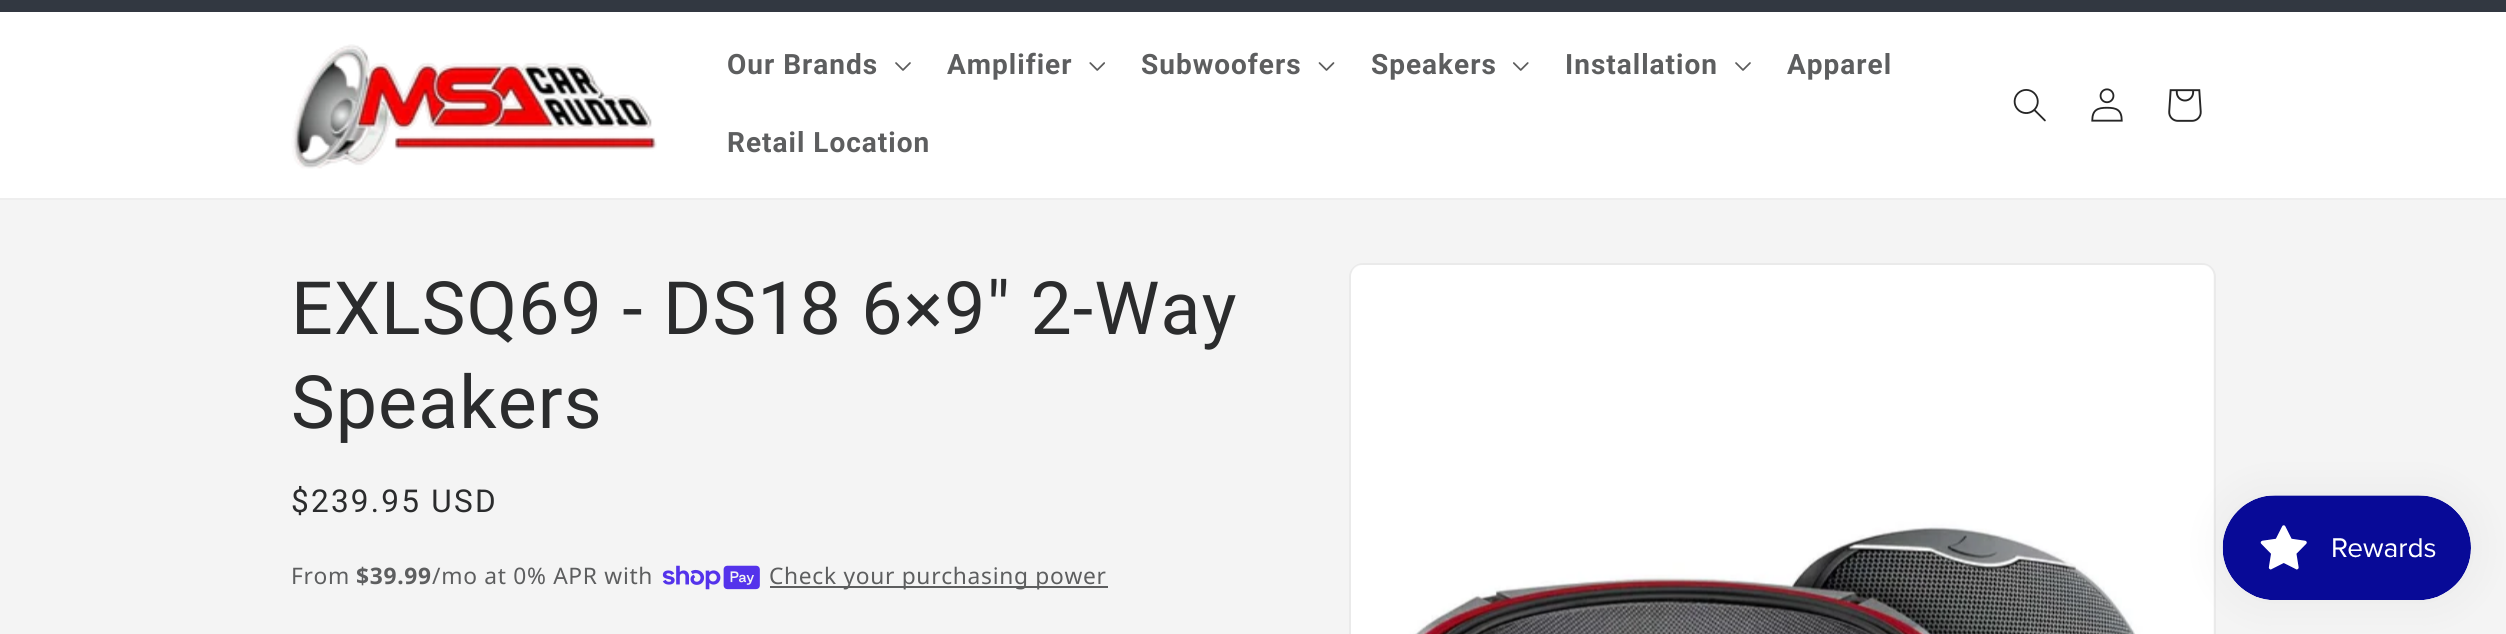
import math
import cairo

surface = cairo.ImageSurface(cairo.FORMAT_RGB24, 2506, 634)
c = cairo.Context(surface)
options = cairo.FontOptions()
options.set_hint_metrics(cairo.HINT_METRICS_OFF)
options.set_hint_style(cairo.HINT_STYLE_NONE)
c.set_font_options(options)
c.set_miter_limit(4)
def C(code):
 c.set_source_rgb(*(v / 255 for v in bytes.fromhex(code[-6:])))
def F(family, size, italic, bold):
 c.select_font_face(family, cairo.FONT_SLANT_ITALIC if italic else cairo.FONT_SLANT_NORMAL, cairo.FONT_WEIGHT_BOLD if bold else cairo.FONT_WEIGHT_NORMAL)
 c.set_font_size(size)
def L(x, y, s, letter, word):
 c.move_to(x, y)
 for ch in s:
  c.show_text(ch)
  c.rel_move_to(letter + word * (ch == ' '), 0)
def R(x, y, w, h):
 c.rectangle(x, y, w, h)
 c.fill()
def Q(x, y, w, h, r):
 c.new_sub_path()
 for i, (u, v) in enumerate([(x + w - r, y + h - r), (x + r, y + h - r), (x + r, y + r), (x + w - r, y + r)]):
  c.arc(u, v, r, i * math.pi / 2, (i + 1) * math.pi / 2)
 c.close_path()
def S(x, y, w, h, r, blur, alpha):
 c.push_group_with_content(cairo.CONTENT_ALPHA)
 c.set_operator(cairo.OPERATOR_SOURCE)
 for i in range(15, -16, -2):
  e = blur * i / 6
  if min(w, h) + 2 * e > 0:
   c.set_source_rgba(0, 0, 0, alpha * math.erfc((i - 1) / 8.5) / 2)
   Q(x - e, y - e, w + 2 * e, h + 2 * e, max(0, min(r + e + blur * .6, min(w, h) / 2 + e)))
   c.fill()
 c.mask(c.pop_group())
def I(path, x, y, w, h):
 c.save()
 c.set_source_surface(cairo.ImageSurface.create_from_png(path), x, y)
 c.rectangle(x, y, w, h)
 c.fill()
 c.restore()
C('f4f4f4')
c.paint()
C('323841')
R(0,0,2506,12)
C('ffffff')
R(0,12,2506,186)
C('eeeeee')
R(0,198,2506,2)
I('1.png',291,44,366,125)
F('Roboto',28,0,1)
C('5d5e5f')
L(727,74,'Our Brands',1,0)
I('2.png',895,62,16,9)
L(947,74,'Amplifier',1,0)
I('3.png',1089,62,16,9)
L(1141,74,'Subwoofers',1,0)
I('4.png',1318,62,17,9)
L(1371,74,'Speakers',1,0)
I('5.png',1513,62,16,9)
L(1565,74,'Installation',1,0)
I('2.png',1735,62,16,9)
L(1787,74,'Apparel',1,0)
L(727,152,'Retail Location',1,0)
I('6.png',2013,89,33,33)
I('7.png',2091,88,32,34)
I('8.png',2168,89,34,33)
F('Roboto',73.5,0,0)
C('2b2c2d')
L(291,334,'EXLSQ69 - DS18 6×9″ 2-Way',1.1,0)
L(291,428,'Speakers',1.1,0)
F('Roboto',31.5,0,0)
L(291,512,'$239.95 USD',2.25,0)
F('Noto Sans',22.75,0,0)
C('5d5e5f')
L(291,584,'From',.7,0)
F('Noto Sans',22.75,0,1)
L(356,584,'$39.99',.7,0)
F('Noto Sans',22.75,0,0)
L(432,584,'/mo at 0% APR with',.7,0)
I('9.png',662,565,98,25)
R(770,586,338,2)
L(769,584,'Check your purchasing power',.7,0)
Q(1350,264,865,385,13)
C('eaeaea')
c.stroke()
I('10.png',1351,265,863,369)
C('000000')
S(2223,495,248,105,52.5,22,.05)
I('11.png',2222,495,249,105)
surface.write_to_png('o.png')
